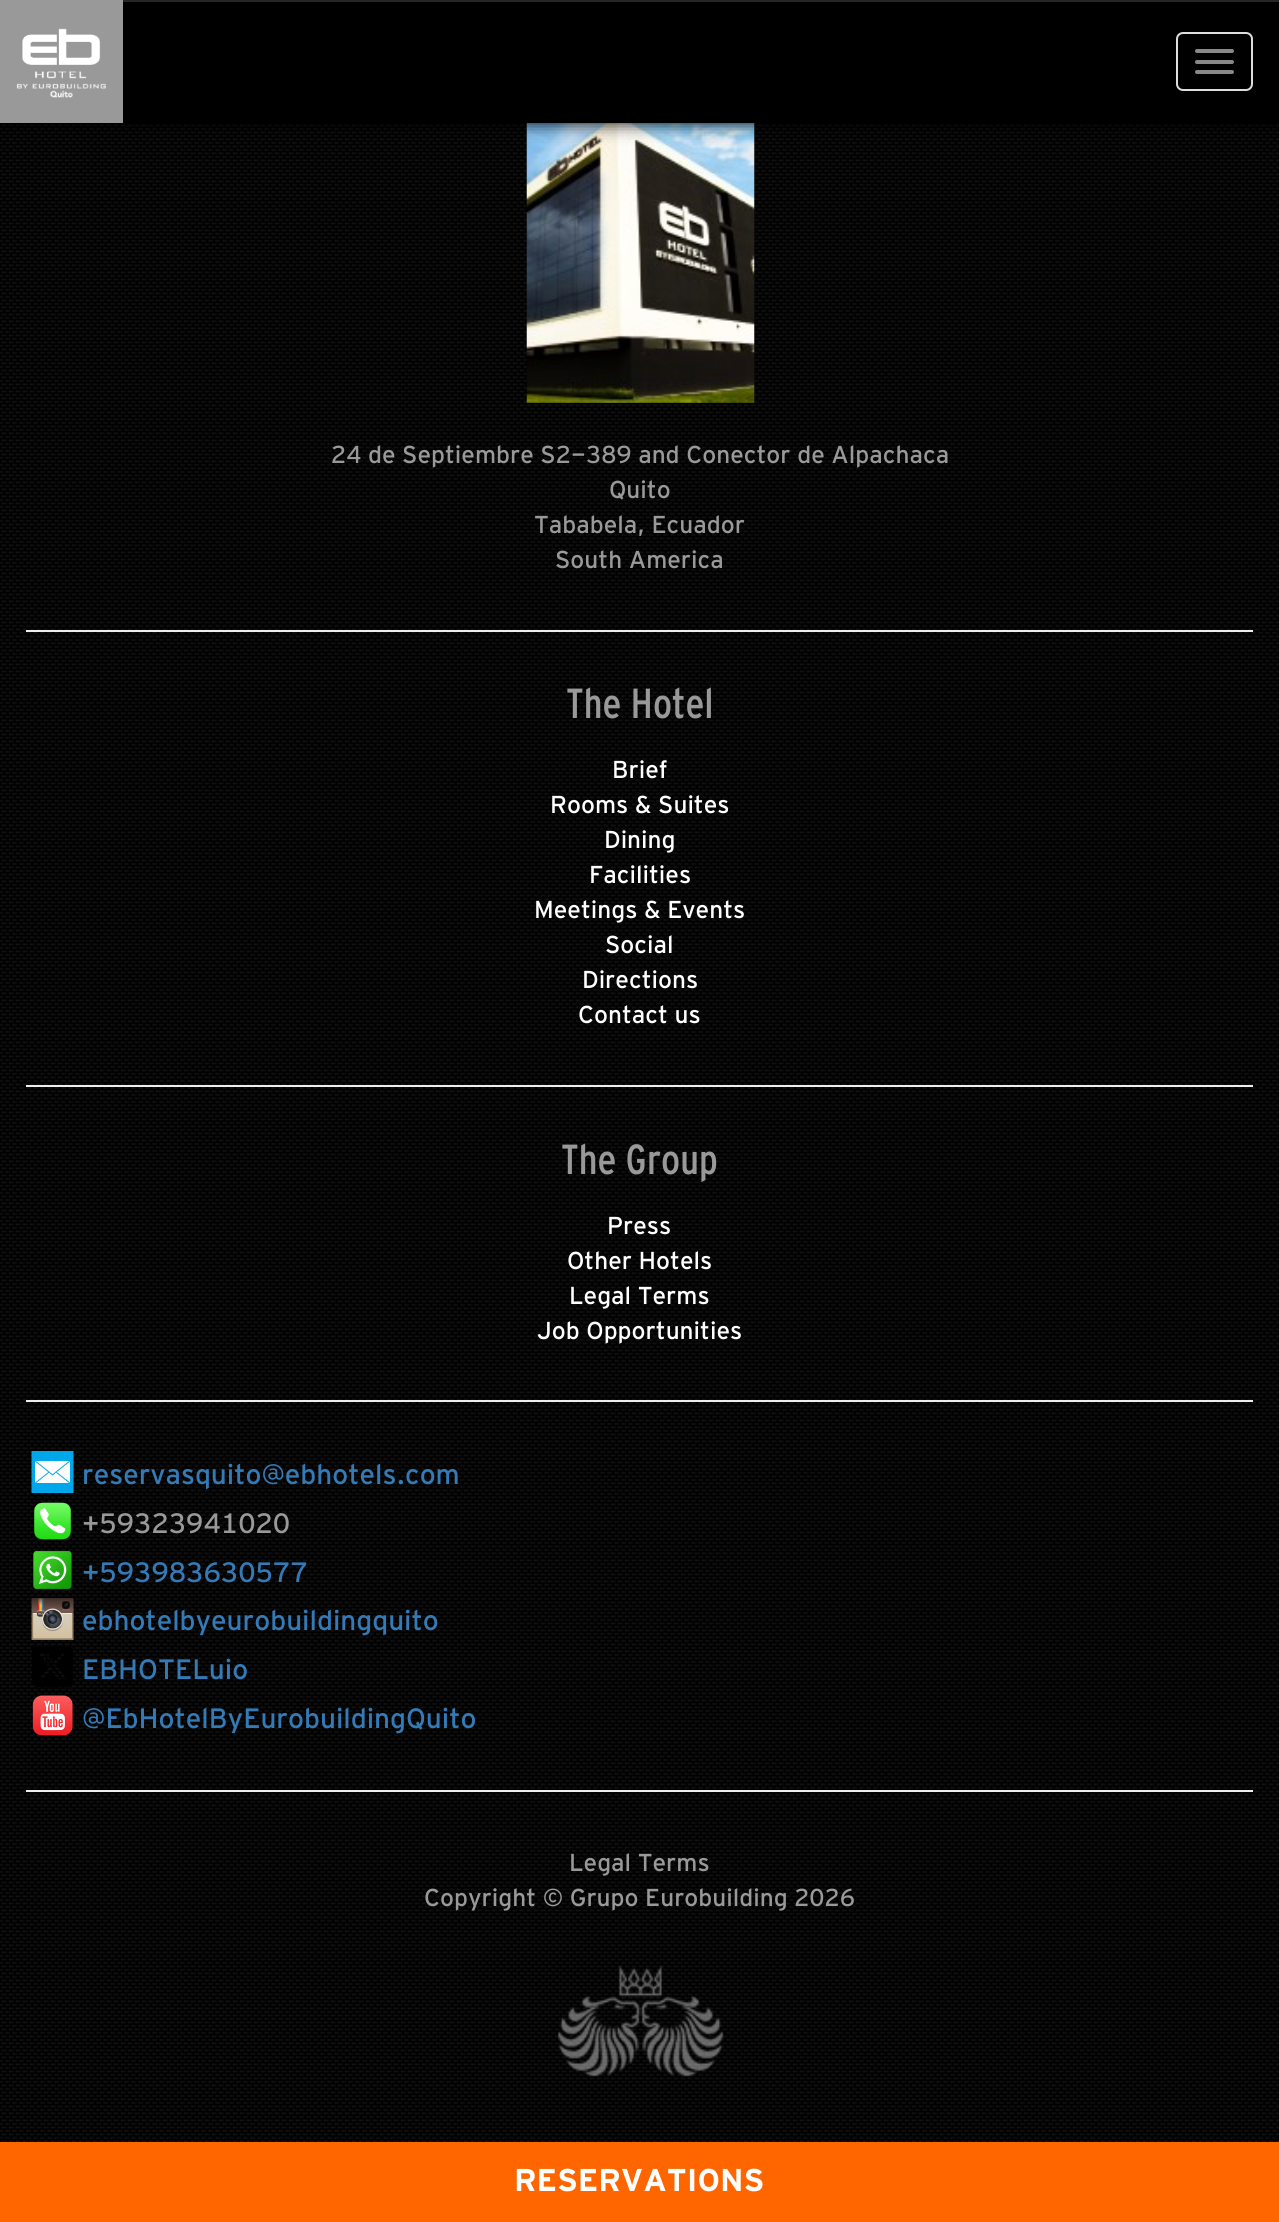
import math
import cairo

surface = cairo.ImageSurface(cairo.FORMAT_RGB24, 1279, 2222)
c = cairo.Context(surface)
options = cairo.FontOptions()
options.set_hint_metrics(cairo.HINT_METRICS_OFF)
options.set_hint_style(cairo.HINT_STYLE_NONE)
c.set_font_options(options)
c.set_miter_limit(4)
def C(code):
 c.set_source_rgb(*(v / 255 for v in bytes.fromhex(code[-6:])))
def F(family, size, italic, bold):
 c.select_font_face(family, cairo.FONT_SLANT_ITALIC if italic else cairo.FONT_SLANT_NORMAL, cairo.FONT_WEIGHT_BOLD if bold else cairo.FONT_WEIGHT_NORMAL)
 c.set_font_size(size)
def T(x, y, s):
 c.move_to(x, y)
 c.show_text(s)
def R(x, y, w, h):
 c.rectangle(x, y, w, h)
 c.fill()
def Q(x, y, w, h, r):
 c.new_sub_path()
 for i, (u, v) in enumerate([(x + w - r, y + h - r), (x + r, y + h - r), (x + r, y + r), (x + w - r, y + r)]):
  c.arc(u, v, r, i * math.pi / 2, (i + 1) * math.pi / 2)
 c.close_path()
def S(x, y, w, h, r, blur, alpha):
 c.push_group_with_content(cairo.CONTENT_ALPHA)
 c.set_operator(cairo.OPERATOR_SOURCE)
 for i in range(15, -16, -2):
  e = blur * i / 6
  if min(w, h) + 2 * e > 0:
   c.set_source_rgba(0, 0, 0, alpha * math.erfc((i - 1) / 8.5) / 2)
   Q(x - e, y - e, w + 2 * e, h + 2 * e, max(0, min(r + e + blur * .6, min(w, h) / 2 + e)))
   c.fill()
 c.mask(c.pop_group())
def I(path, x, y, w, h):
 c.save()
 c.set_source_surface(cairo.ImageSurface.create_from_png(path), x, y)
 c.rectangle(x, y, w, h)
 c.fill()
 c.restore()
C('ffffff')
c.paint()
I('2.png',0,123,1279,2019)
I('3.png',526,123,229,280)
C('000000')
S(0,0,1279,123,0,9,1)
C('000000')
R(123,2,1156,121)
C('262626')
R(123,0,1156,2)
C('999999')
R(0,0,123,123)
I('1.png',16,28,90,70)
Q(1177,33,75,57,6)
C('dddddd')
c.stroke()
C('888888')
Q(1195,49,39,4,2)
c.fill()
Q(1195,60,39,4,2)
c.fill()
Q(1195,70,39,4,2)
c.fill()
F('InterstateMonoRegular',24.5,0,0)
C('999999')
T(331,463,'24 de Septiembre S2-389 and Conector de Alpachaca')
T(609,498,'Quito')
T(534,533,'Tababela, Ecuador')
T(555,568,'South America')
C('eeeeee')
R(26,630,1227,2)
F('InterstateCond',42,0,0)
C('999999')
T(566,718,'The Hotel')
F('InterstateMonoRegular',24.5,0,0)
C('ffffff')
T(612,778,'Brief')
T(550,813,'Rooms & Suites')
T(604,848,'Dining')
T(589,883,'Facilities')
T(534,918,'Meetings & Events')
T(605,953,'Social')
T(582,988,'Directions')
T(578,1023,'Contact us')
C('eeeeee')
R(26,1085,1227,2)
F('InterstateCond',42,0,0)
C('999999')
T(561,1174,'The Group')
F('InterstateMonoRegular',24.5,0,0)
C('ffffff')
T(607,1234,'Press')
T(567,1269,'Other Hotels')
T(569,1304,'Legal Terms')
T(537,1339,'Job Opportunities')
C('eeeeee')
R(26,1400,1227,2)
I('4.png',31,1451,43,42)
F('InterstateMonoRegular',28,0,0)
C('337ab7')
T(82,1484,'reservasquito@ebhotels.com')
I('5.png',34,1502,37,38)
C('999999')
T(82,1533,'+59323941020')
I('6.png',33,1550,39,40)
C('337ab7')
T(82,1582,'+593983630577')
I('7.png',31,1598,43,42)
T(82,1630,'ebhotelbyeurobuildingquito')
I('8.png',32,1647,41,40)
T(82,1679,'EBHOTELuio')
I('9.png',32,1695,41,41)
T(82,1728,'@EbHotelByEurobuildingQuito')
C('eeeeee')
R(26,1790,1227,2)
F('InterstateMonoRegular',24.5,0,0)
C('999999')
T(569,1871,'Legal Terms')
T(424,1906,'Copyright © Grupo Eurobuilding 2026')
I('10.png',557,1965,167,112)
C('ff6600')
R(0,2142,1279,80)
F('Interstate',31.5,0,1)
C('ffffff')
T(514,2191,'RESERVATIONS')
surface.write_to_png('o.png')
